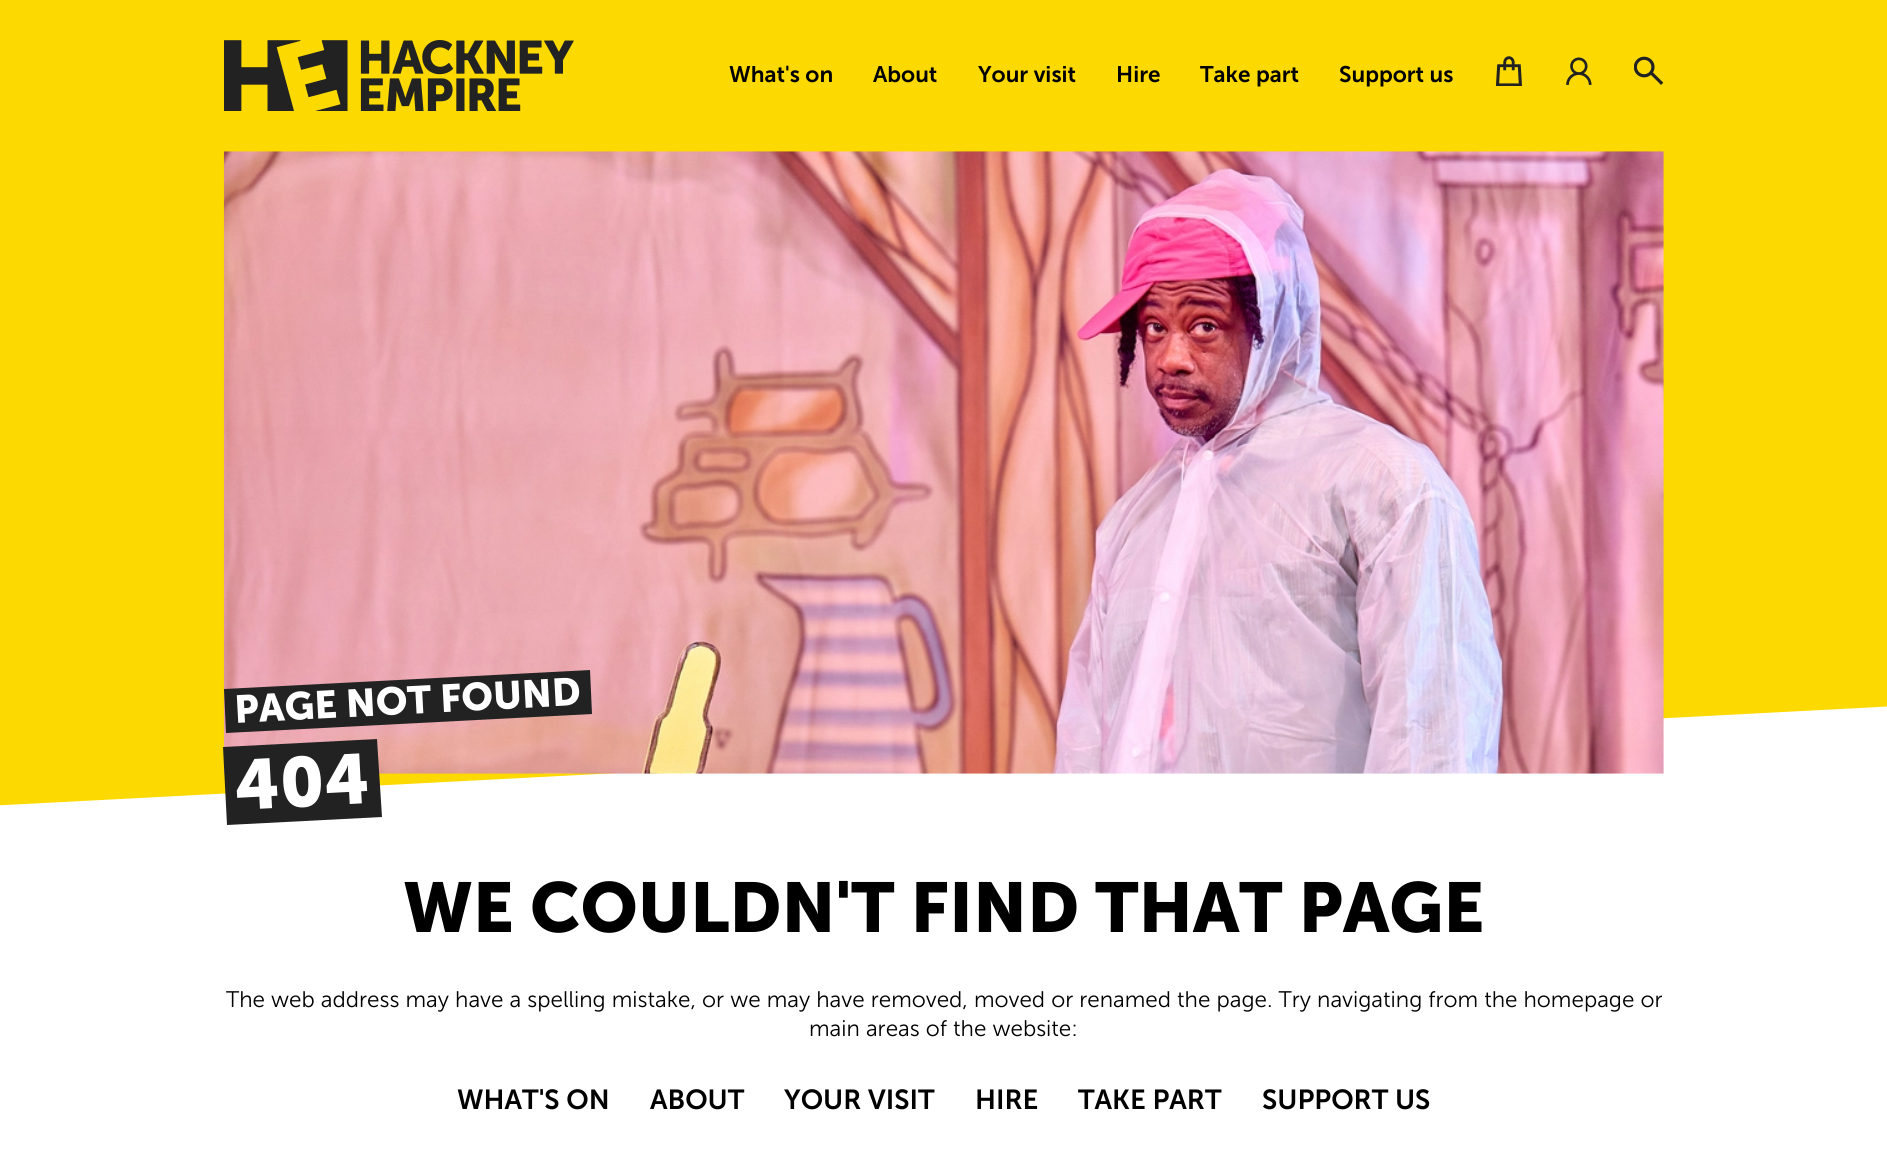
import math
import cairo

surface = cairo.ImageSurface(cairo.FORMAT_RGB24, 1887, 1164)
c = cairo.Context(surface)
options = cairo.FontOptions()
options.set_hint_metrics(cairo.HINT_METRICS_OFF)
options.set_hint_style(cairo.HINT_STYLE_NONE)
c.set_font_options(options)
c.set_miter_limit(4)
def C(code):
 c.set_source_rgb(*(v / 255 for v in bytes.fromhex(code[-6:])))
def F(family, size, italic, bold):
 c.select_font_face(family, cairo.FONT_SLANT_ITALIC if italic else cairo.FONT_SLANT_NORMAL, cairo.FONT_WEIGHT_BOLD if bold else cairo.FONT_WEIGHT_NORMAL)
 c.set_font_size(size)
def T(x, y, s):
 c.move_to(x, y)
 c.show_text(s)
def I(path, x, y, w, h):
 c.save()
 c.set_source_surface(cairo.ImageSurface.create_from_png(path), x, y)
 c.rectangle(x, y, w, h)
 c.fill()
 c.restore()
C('ffffff')
c.paint()
C('fcd900')
c.new_path()
c.move_to(-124,-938)
c.line_to(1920,-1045)
c.line_to(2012,700)
c.line_to(-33,807)
c.close_path()
c.fill()
I('1.png',224,40,350,71)
F('Museo Sans SemiBold',22.5,0,0)
C('000000')
T(729,82,'What\'s on')
T(873,82,'About')
T(978,82,'Your visit')
T(1116,82,'Hire')
T(1200,82,'Take part')
T(1339,82,'Support us')
I('2.png',1495,56,27,30)
I('3.png',1566,57,26,28)
I('4.png',1634,56,30,29)
I('5.png',223,151,1441,623)
C('222222')
c.new_path()
c.move_to(224,689)
c.line_to(590,670)
c.line_to(592,714)
c.line_to(226,733)
c.close_path()
c.fill()
F('Museo Sans ExtraBold',38.75,0,0)
C('ffffff')
c.save()
c.translate(235,723)
c.rotate(-3 * math.pi / 180)
T(0,0,'PAGE NOT FOUND')
c.restore()
C('222222')
c.new_path()
c.move_to(223,747)
c.line_to(377,739)
c.line_to(382,817)
c.line_to(227,825)
c.close_path()
c.fill()
F('Museo Sans ExtraBold',70,0,0)
C('ffffff')
c.save()
c.translate(236,810)
c.rotate(-3 * math.pi / 180)
T(0,0,'404')
c.restore()
C('000000')
T(403,932,'WE COULDN\'T FIND THAT PAGE')
F('Museo Sans Light',22.5,0,0)
T(226,1007,'The web address may have a spelling mistake, or we may have removed, moved or renamed the page. Try navigating from the homepage or')
T(809,1036,'main areas of the website:')
F('Museo Sans SemiBold',27.5,0,0)
T(457,1109,'WHAT\'S ON')
T(650,1109,'ABOUT')
T(784,1109,'YOUR VISIT')
T(975,1109,'HIRE')
T(1078,1109,'TAKE PART')
T(1262,1109,'SUPPORT US')
surface.write_to_png('o.png')
